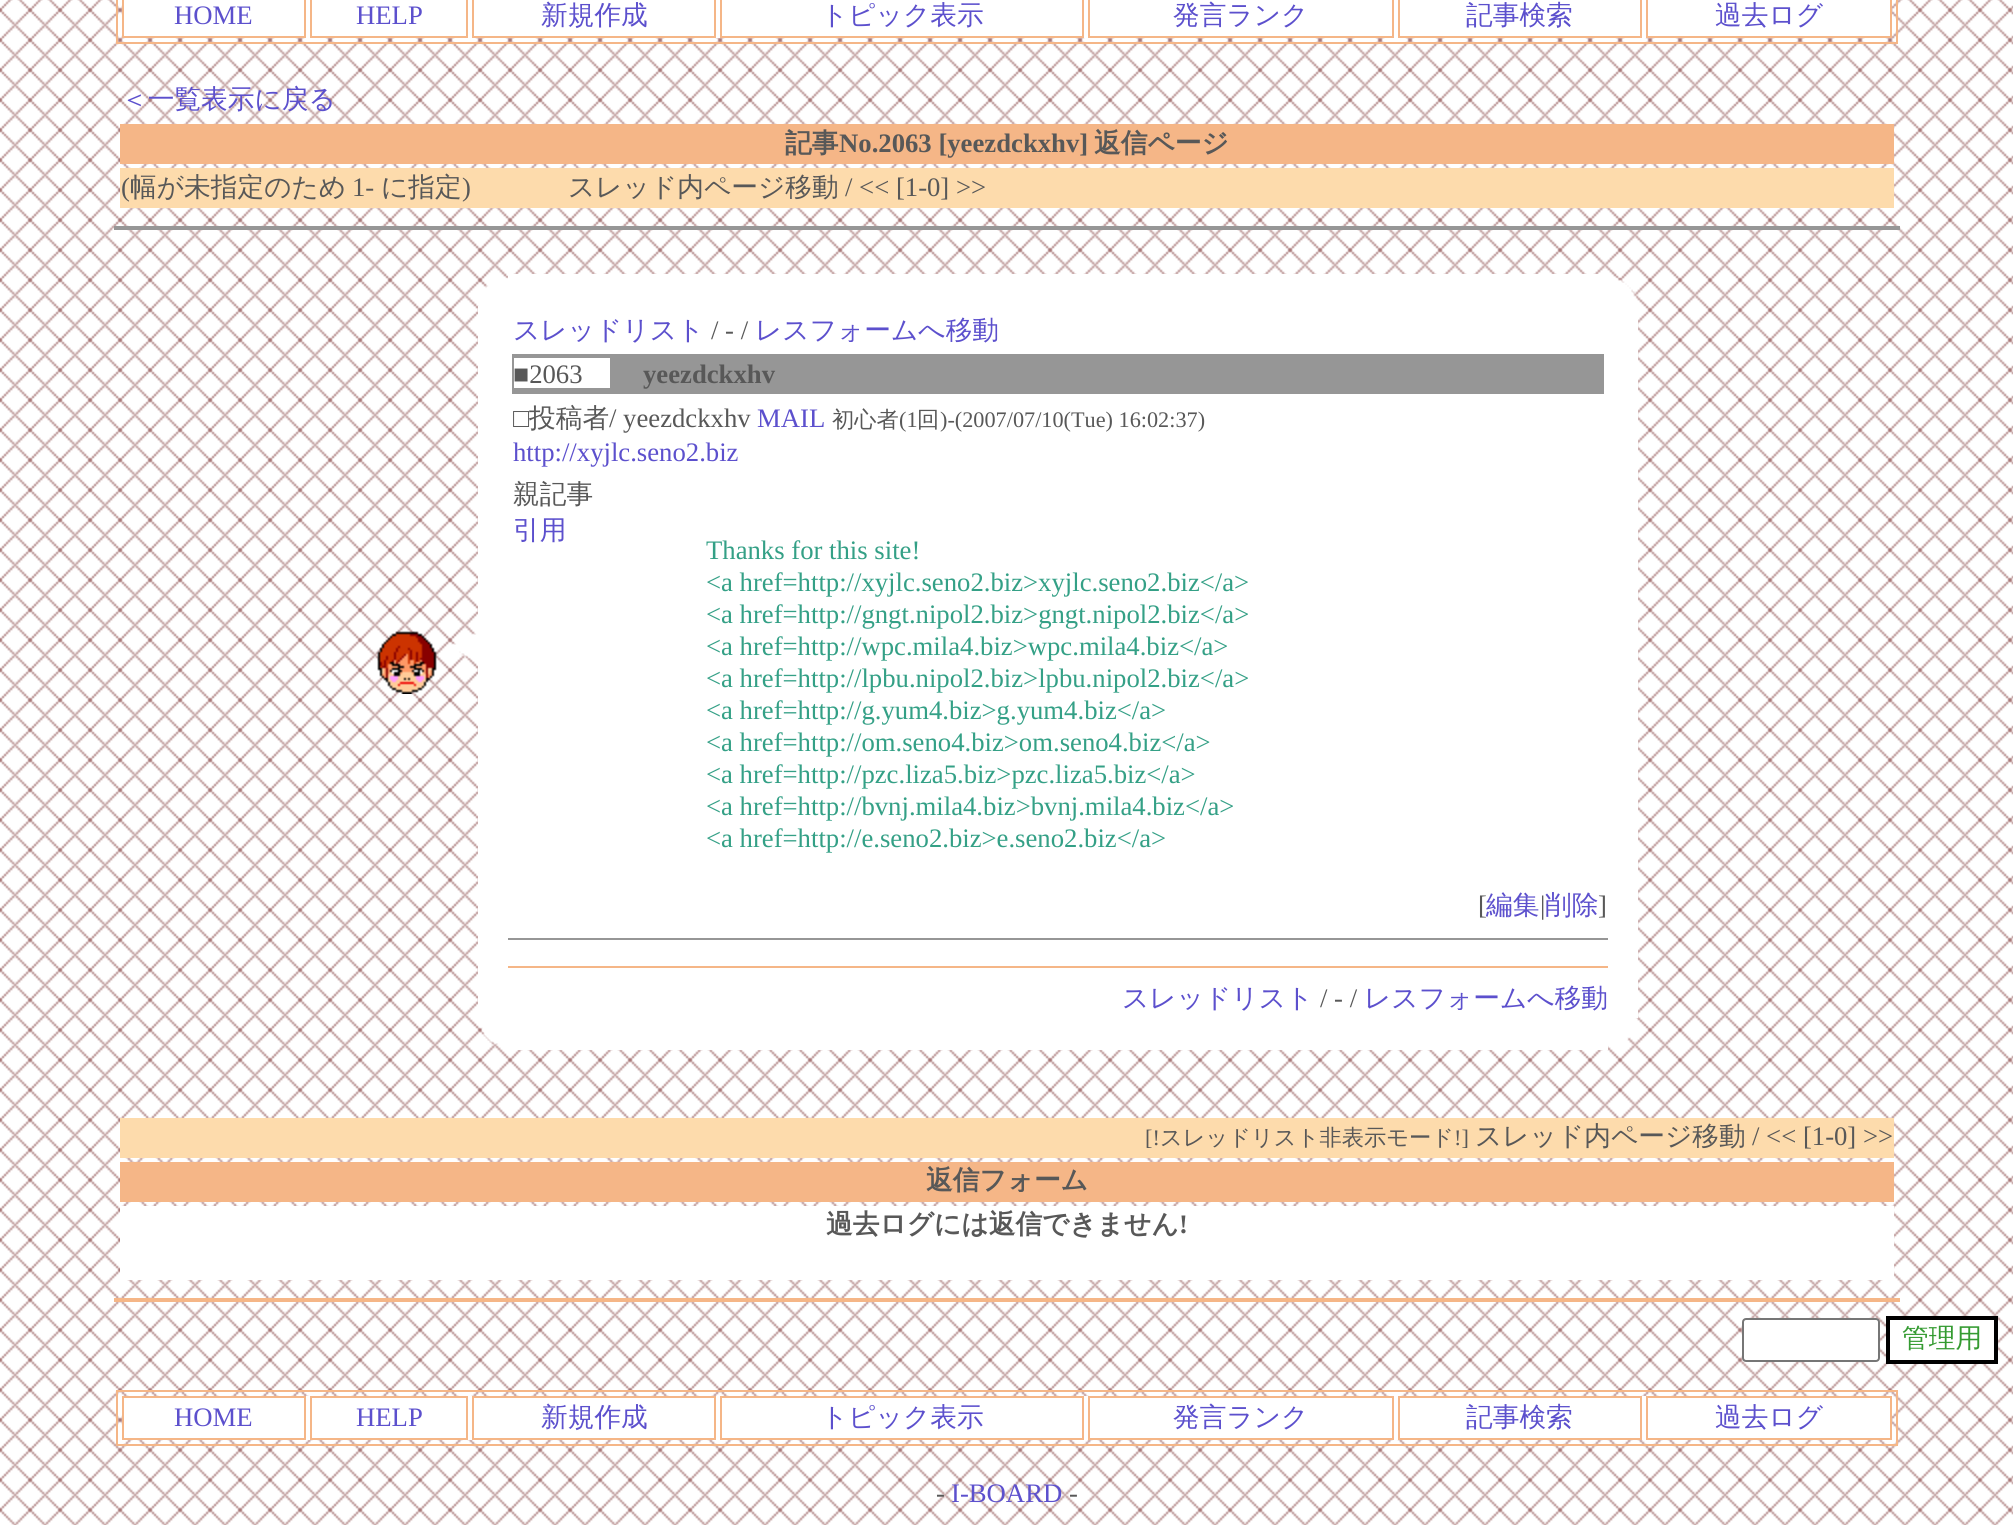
import math
import cairo

surface = cairo.ImageSurface(cairo.FORMAT_RGB24, 2013, 1525)
c = cairo.Context(surface)
options = cairo.FontOptions()
options.set_hint_metrics(cairo.HINT_METRICS_OFF)
options.set_hint_style(cairo.HINT_STYLE_NONE)
c.set_font_options(options)
c.set_miter_limit(4)
def C(code):
 c.set_source_rgb(*(v / 255 for v in bytes.fromhex(code[-6:])))
def F(family, size, italic, bold):
 c.select_font_face(family, cairo.FONT_SLANT_ITALIC if italic else cairo.FONT_SLANT_NORMAL, cairo.FONT_WEIGHT_BOLD if bold else cairo.FONT_WEIGHT_NORMAL)
 c.set_font_size(size)
def T(x, y, s):
 c.move_to(x, y)
 c.show_text(s)
def R(x, y, w, h):
 c.rectangle(x, y, w, h)
 c.fill()
def Q(x, y, w, h, r):
 c.new_sub_path()
 for i, (u, v) in enumerate([(x + w - r, y + h - r), (x + r, y + h - r), (x + r, y + r), (x + w - r, y + r)]):
  c.arc(u, v, r, i * math.pi / 2, (i + 1) * math.pi / 2)
 c.close_path()
def I(path, x, y, w, h):
 c.save()
 c.set_source_surface(cairo.ImageSurface.create_from_png(path), x, y)
 c.rectangle(x, y, w, h)
 c.fill()
 c.restore()
C('ffffff')
c.paint()
I('1.png',0,0,2013,1525)
c.rectangle(117,-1,1780,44)
C('f5b687')
c.stroke()
C('ffffff')
R(124,0,1766,38)
c.rectangle(123,-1,182,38)
C('f5b687')
c.stroke()
F('Liberation Serif',26.7,0,0)
C('5c50cd')
T(174,24,'HOME')
c.rectangle(311,-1,156,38)
C('f5b687')
c.stroke()
C('5c50cd')
T(356,24,'HELP')
c.rectangle(473,-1,242,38)
C('f5b687')
c.stroke()
F('WenQuanYi Zen Hei Medium',26.7,0,0)
C('5c50cd')
T(541,24,'新規作成')
c.rectangle(721,-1,362,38)
C('f5b687')
c.stroke()
C('5c50cd')
T(821,24,'トピック表示')
c.rectangle(1089,-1,304,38)
C('f5b687')
c.stroke()
C('5c50cd')
T(1173,24,'発言ランク')
c.rectangle(1399,-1,242,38)
C('f5b687')
c.stroke()
C('5c50cd')
T(1466,24,'記事検索')
c.rectangle(1647,-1,244,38)
C('f5b687')
c.stroke()
C('5c50cd')
T(1715,24,'過去ログ')
T(121,108,'＜一覧表示に戻る')
C('f5b687')
R(120,124,1774,40)
F('WenQuanYi Zen Hei',26.7,0,1)
C('585858')
T(785,152,'記事')
F('Liberation Serif',26.7,0,1)
T(839,152,'No.2063 [yeezdckxhv]')
F('WenQuanYi Zen Hei',26.7,0,1)
T(1094,152,'返信ページ')
C('fddbac')
R(120,168,1774,40)
F('Liberation Serif',26.7,0,0)
C('585858')
T(121,196,'(')
F('WenQuanYi Zen Hei Medium',26.7,0,0)
T(130,196,'幅が未指定のため')
F('Liberation Serif',26.7,0,0)
T(352,196,'1-')
F('WenQuanYi Zen Hei Medium',26.7,0,0)
T(381,196,'に指定')
F('Liberation Serif',26.7,0,0)
T(462,196,')')
F('WenQuanYi Zen Hei Medium',26.7,0,0)
T(568,196,'スレッド内ページ移動')
F('Liberation Serif',26.7,0,0)
T(845,196,'/ << [1-0] >>')
C('969696')
R(114,226,1786,4)
I('2.png',377,631,60,63)
I('3.png',452,633,26,28)
I('4.png',481,277,27,29)
C('ffffff')
R(508,274,1100,32)
I('5.png',1608,277,29,29)
R(478,306,1160,646)
F('WenQuanYi Zen Hei Medium',26.7,0,0)
C('5c50cd')
T(513,339,'スレッドリスト')
F('Liberation Serif',26.7,0,0)
C('585858')
T(711,339,'/ - /')
F('WenQuanYi Zen Hei Medium',26.7,0,0)
C('5c50cd')
T(755,339,'レスフォームへ移動')
C('969696')
R(512,354,1092,40)
C('ffffff')
R(514,358,96,30)
F('Liberation Serif',26.7,0,0)
C('585858')
T(513,383,'■2063')
F('Liberation Serif',26.7,0,1)
T(643,383,'yeezdckxhv')
F('Liberation Serif',26.7,0,0)
T(513,427,'□')
F('WenQuanYi Zen Hei Medium',26.7,0,0)
T(529,427,'投稿者')
F('Liberation Serif',26.7,0,0)
T(609,427,'/ yeezdckxhv')
C('5c50cd')
T(757,427,'MAIL')
F('WenQuanYi Zen Hei Medium',22.25,0,0)
C('585858')
T(832,427,'初心者')
F('Liberation Serif',22.25,0,0)
T(899,427,'(1')
F('WenQuanYi Zen Hei Medium',22.25,0,0)
T(917,427,'回')
F('Liberation Serif',22.25,0,0)
T(940,427,')-(2007/07/10(Tue) 16:02:37)')
F('Liberation Serif',26.7,0,0)
C('5c50cd')
T(513,461,'http://xyjlc.seno2.biz')
F('WenQuanYi Zen Hei Medium',26.7,0,0)
C('585858')
T(513,503,'親記事')
C('5c50cd')
T(513,539,'引用')
F('Liberation Serif',26.7,0,0)
C('34a086')
T(706,559,'Thanks for this site!')
T(706,591,'<a href=http://xyjlc.seno2.biz>xyjlc.seno2.biz</a>')
T(706,623,'<a href=http://gngt.nipol2.biz>gngt.nipol2.biz</a>')
T(706,655,'<a href=http://wpc.mila4.biz>wpc.mila4.biz</a>')
T(706,687,'<a href=http://lpbu.nipol2.biz>lpbu.nipol2.biz</a>')
T(706,719,'<a href=http://g.yum4.biz>g.yum4.biz</a>')
T(706,751,'<a href=http://om.seno4.biz>om.seno4.biz</a>')
T(706,783,'<a href=http://pzc.liza5.biz>pzc.liza5.biz</a>')
T(706,815,'<a href=http://bvnj.mila4.biz>bvnj.mila4.biz</a>')
T(706,847,'<a href=http://e.seno2.biz>e.seno2.biz</a>')
C('585858')
T(1478,914,'[')
F('WenQuanYi Zen Hei Medium',26.7,0,0)
C('5c50cd')
T(1486,914,'編集')
F('Liberation Serif',26.7,0,0)
C('585858')
T(1540,914,'|')
F('WenQuanYi Zen Hei Medium',26.7,0,0)
C('5c50cd')
T(1545,914,'削除')
F('Liberation Serif',26.7,0,0)
C('585858')
T(1598,914,']')
C('969696')
R(508,938,1100,2)
C('ffffff')
R(478,952,1160,66)
C('f5b687')
R(508,966,1100,2)
F('WenQuanYi Zen Hei Medium',26.7,0,0)
C('5c50cd')
T(1122,1007,'スレッドリスト')
F('Liberation Serif',26.7,0,0)
C('585858')
T(1320,1007,'/ - /')
F('WenQuanYi Zen Hei Medium',26.7,0,0)
C('5c50cd')
T(1364,1007,'レスフォームへ移動')
I('6.png',479,1018,29,29)
C('ffffff')
R(508,1018,1100,32)
I('7.png',1608,1018,29,29)
C('fddbac')
R(120,1118,1774,40)
F('Liberation Serif',22.25,0,0)
C('585858')
T(1145,1145,'[!')
F('WenQuanYi Zen Hei Medium',22.25,0,0)
T(1160,1145,'スレッドリスト非表示モード')
F('Liberation Serif',22.25,0,0)
T(1454,1145,'!]')
F('WenQuanYi Zen Hei Medium',26.7,0,0)
T(1475,1145,'スレッド内ページ移動')
F('Liberation Serif',26.7,0,0)
T(1752,1145,'/ << [1-0] >>')
C('f5b687')
R(120,1162,1774,40)
F('WenQuanYi Zen Hei',26.7,0,1)
C('585858')
T(926,1189,'返信フォーム')
C('ffffff')
R(120,1206,1774,74)
C('585858')
T(826,1233,'過去ログには返信できません')
F('Liberation Serif',26.7,0,1)
T(1179,1233,'!')
C('f5b687')
R(114,1298,1786,4)
C('ffffff')
Q(1743,1319,136,42,3)
c.fill_preserve()
C('767676')
c.stroke()
C('ffffff')
c.rectangle(1888,1318,108,44)
c.fill_preserve()
C('000000')
c.set_line_width(4)
c.stroke()
F('WenQuanYi Zen Hei Medium',26.7,0,0)
C('349b31')
T(1902,1347,'管理用')
c.rectangle(117,1391,1780,54)
C('f5b687')
c.set_line_width(2)
c.stroke()
C('ffffff')
R(124,1396,1766,44)
c.rectangle(123,1397,182,42)
C('f5b687')
c.stroke()
F('Liberation Serif',26.7,0,0)
C('5c50cd')
T(174,1426,'HOME')
c.rectangle(311,1397,156,42)
C('f5b687')
c.stroke()
C('5c50cd')
T(356,1426,'HELP')
c.rectangle(473,1397,242,42)
C('f5b687')
c.stroke()
F('WenQuanYi Zen Hei Medium',26.7,0,0)
C('5c50cd')
T(541,1426,'新規作成')
c.rectangle(721,1397,362,42)
C('f5b687')
c.stroke()
C('5c50cd')
T(821,1426,'トピック表示')
c.rectangle(1089,1397,304,42)
C('f5b687')
c.stroke()
C('5c50cd')
T(1173,1426,'発言ランク')
c.rectangle(1399,1397,242,42)
C('f5b687')
c.stroke()
C('5c50cd')
T(1466,1426,'記事検索')
c.rectangle(1647,1397,244,42)
C('f5b687')
c.stroke()
C('5c50cd')
T(1715,1426,'過去ログ')
F('Liberation Serif',26.7,0,0)
C('585858')
T(936,1502,'-')
C('5c50cd')
T(951,1502,'I-BOARD')
C('585858')
T(1069,1502,'-')
surface.write_to_png('o.png')
